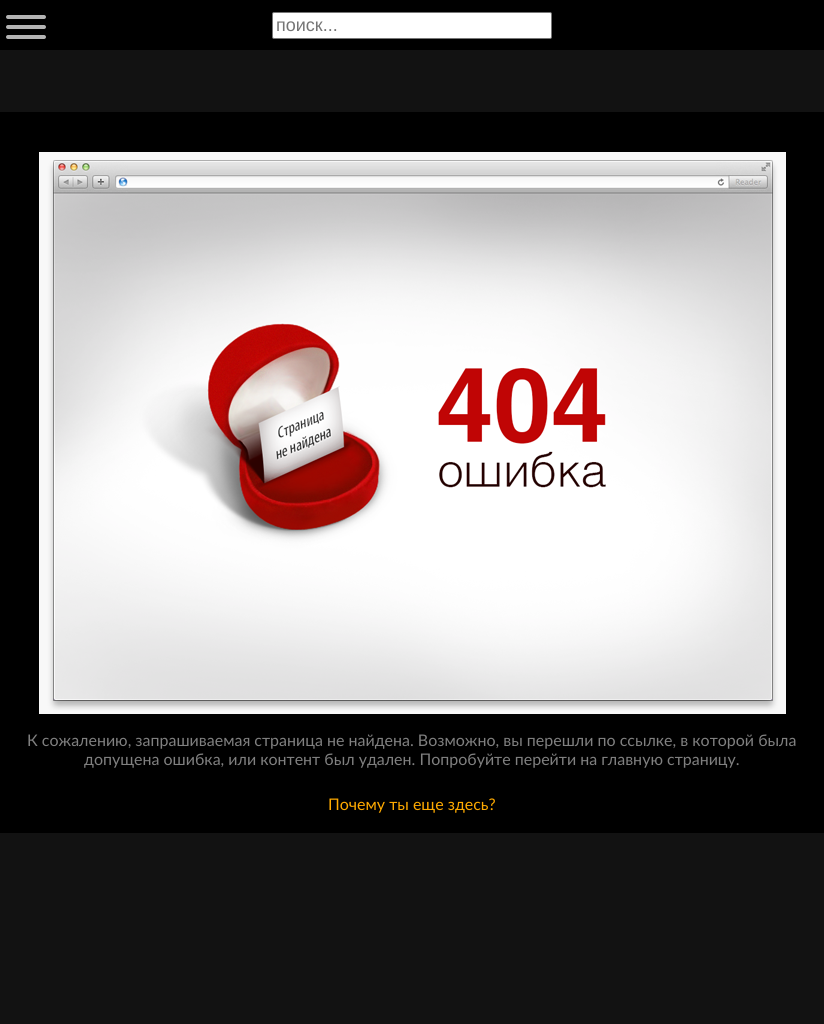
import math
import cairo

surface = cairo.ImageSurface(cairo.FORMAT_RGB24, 824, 1024)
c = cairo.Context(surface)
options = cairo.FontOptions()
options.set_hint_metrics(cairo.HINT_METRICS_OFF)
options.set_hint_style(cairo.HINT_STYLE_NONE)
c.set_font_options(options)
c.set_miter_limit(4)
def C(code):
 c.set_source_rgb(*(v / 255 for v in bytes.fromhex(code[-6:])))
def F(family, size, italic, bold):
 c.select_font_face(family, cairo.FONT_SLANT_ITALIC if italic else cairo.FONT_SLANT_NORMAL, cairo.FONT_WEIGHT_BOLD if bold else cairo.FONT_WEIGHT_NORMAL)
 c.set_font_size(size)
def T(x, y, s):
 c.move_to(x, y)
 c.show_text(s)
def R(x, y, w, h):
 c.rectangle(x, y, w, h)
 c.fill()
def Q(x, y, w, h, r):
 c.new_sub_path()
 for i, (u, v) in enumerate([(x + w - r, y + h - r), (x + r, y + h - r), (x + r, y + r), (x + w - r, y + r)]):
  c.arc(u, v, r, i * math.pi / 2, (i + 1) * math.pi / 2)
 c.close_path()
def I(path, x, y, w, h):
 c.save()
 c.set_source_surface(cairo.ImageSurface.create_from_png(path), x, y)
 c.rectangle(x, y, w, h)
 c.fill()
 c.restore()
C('121212')
c.paint()
C('000000')
R(0,0,824,50)
C('b3b3b3')
Q(6,25,40,4,2)
c.fill()
Q(6,15,40,4,2)
c.fill()
Q(6,35,40,4,2)
c.fill()
C('ffffff')
Q(272.5,12.5,279,26,1.5)
c.fill_preserve()
C('767676')
c.set_line_width(1)
c.stroke()
F('Liberation Sans',18,0,0)
C('757575')
T(276,31,'поиск...')
C('000000')
R(0,112,824,721)
I('1.png',39,152,747,562)
F('Lato',16,0,0)
C('808080')
T(27,746,'К сожалению, запрашиваемая страница не найдена. Возможно, вы перешли по ссылке, в которой была')
T(84,765,'допущена ошибка, или контент был удален. Попробуйте перейти на главную страницу.')
C('ffaa00')
T(328,810,'Почему ты еще здесь?')
surface.write_to_png('o.png')
